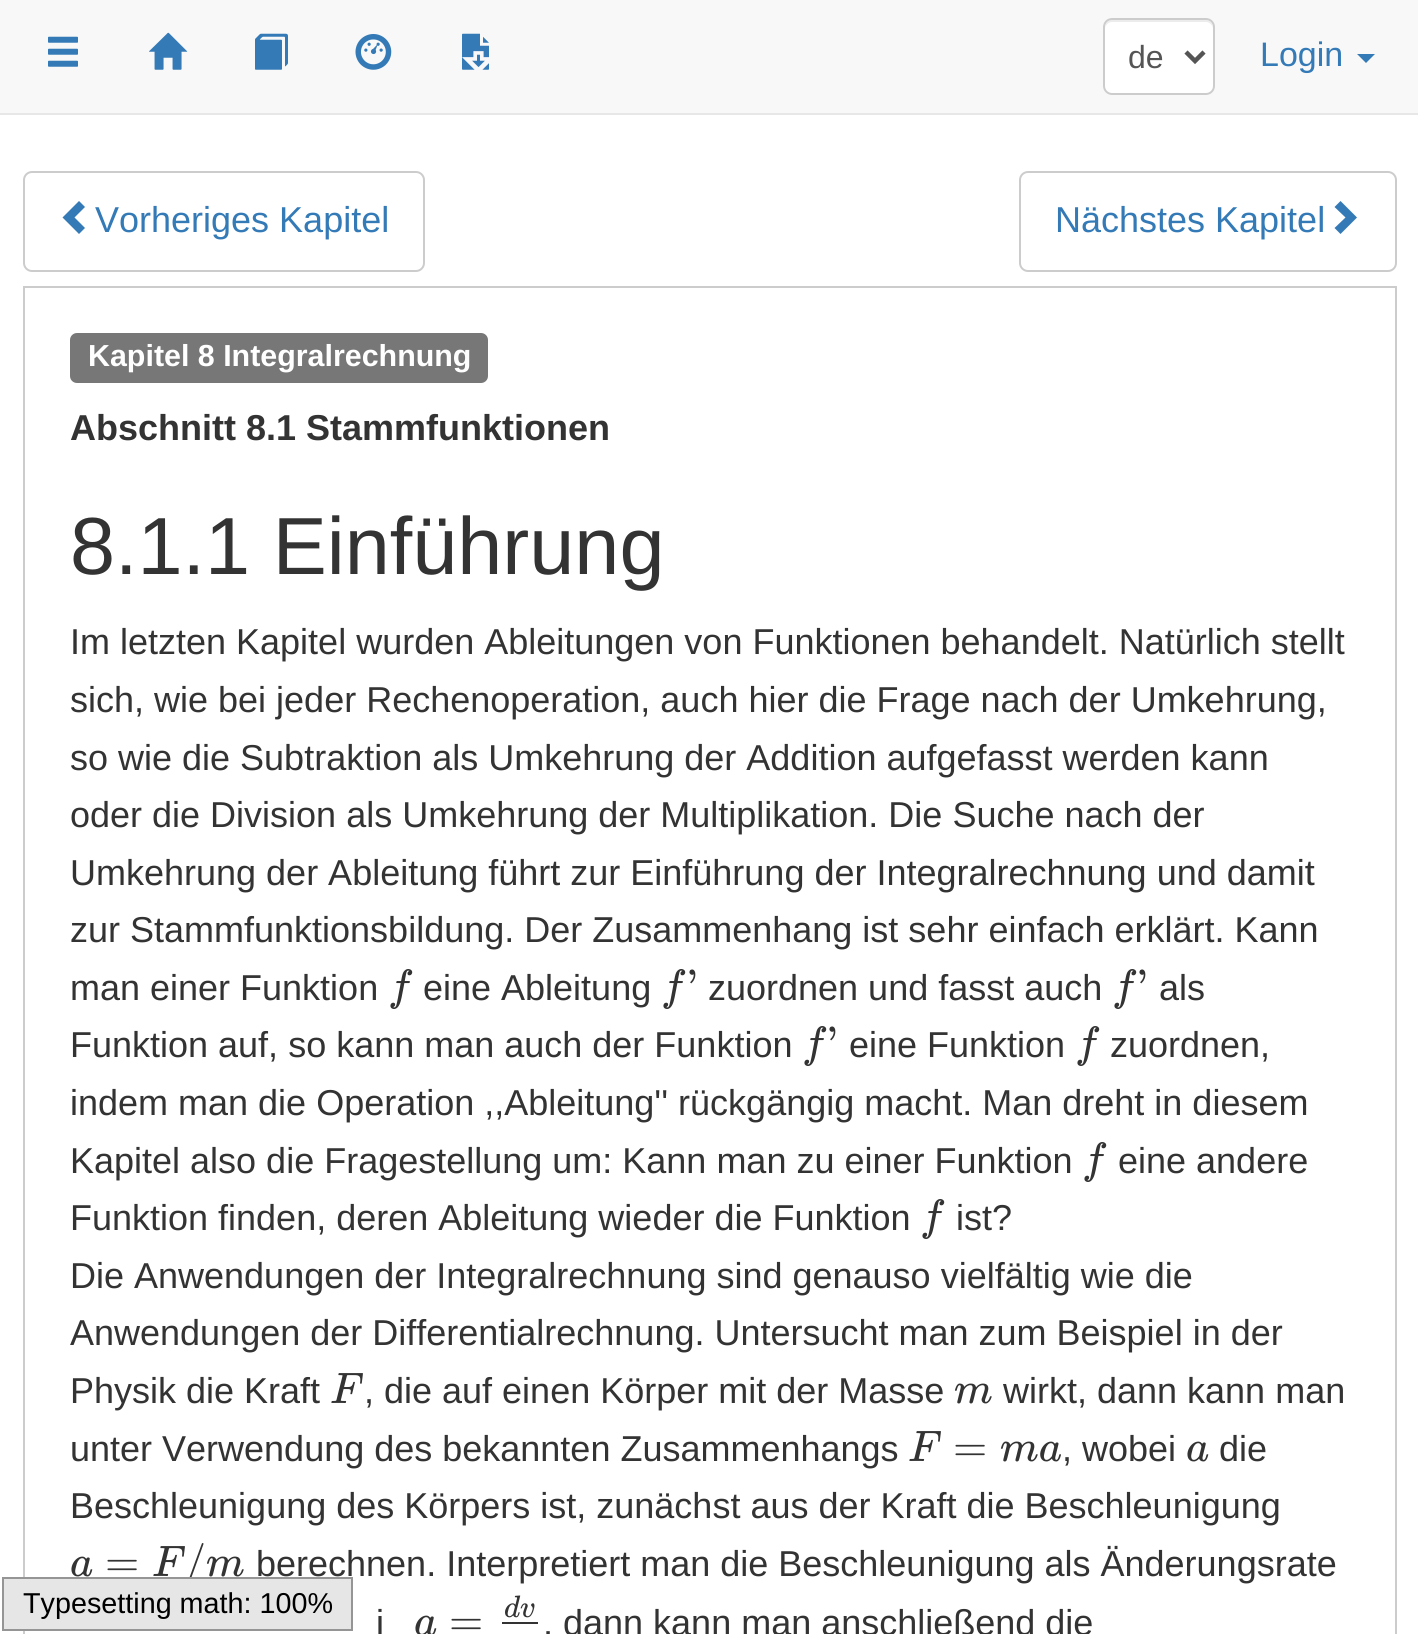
import math
import cairo

surface = cairo.ImageSurface(cairo.FORMAT_RGB24, 1418, 1634)
c = cairo.Context(surface)
options = cairo.FontOptions()
options.set_hint_metrics(cairo.HINT_METRICS_OFF)
options.set_hint_style(cairo.HINT_STYLE_NONE)
c.set_font_options(options)
c.set_miter_limit(4)
def C(code):
 c.set_source_rgb(*(v / 255 for v in bytes.fromhex(code[-6:])))
def F(family, size, italic, bold):
 c.select_font_face(family, cairo.FONT_SLANT_ITALIC if italic else cairo.FONT_SLANT_NORMAL, cairo.FONT_WEIGHT_BOLD if bold else cairo.FONT_WEIGHT_NORMAL)
 c.set_font_size(size)
def T(x, y, s):
 c.move_to(x, y)
 c.show_text(s)
def R(x, y, w, h):
 c.rectangle(x, y, w, h)
 c.fill()
def Q(x, y, w, h, r):
 c.new_sub_path()
 for i, (u, v) in enumerate([(x + w - r, y + h - r), (x + r, y + h - r), (x + r, y + r), (x + w - r, y + r)]):
  c.arc(u, v, r, i * math.pi / 2, (i + 1) * math.pi / 2)
 c.close_path()
def I(path, x, y, w, h):
 c.save()
 c.set_source_surface(cairo.ImageSurface.create_from_png(path), x, y)
 c.rectangle(x, y, w, h)
 c.fill()
 c.restore()
C('ffffff')
c.paint()
C('f8f8f8')
R(0,0,1418,113)
C('e7e7e7')
R(0,113,1418,2)
I('1.png',48,36,30,31)
I('2.png',149,32,39,38)
I('3.png',255,33,33,37)
I('4.png',355,34,37,36)
I('5.png',462,33,27,37)
C('ffffff')
Q(1103,18,112,77,9)
c.fill()
C('ececec')
c.new_path()
c.move_to(1112,22)
c.line_to(1206,22)
c.curve_to(1210,22,1213,26,1213,29)
c.curve_to(1213,16,1200,20,1190,20)
c.line_to(1128,20)
c.curve_to(1118,20,1105,16,1105,29)
c.curve_to(1105,26,1108,22,1112,22)
c.close_path()
c.fill()
Q(1104,19,110,75,8)
C('cccccc')
c.stroke()
c.new_path()
c.move_to(1186,52)
c.line_to(1195,61)
c.line_to(1204,52)
C('555555')
c.set_line_width(4.5)
c.stroke()
F('Liberation Sans',32,0,0)
T(1128,68,'de')
F('Liberation Sans',34,0,0)
C('337ab7')
T(1260,66,'Login')
c.new_path()
c.move_to(1357,54)
c.line_to(1375,54)
c.line_to(1366,63)
c.close_path()
c.fill()
Q(24,172,400,99,8)
C('cccccc')
c.set_line_width(2)
c.stroke()
C('337ab7')
c.new_path()
c.move_to(85,207)
c.line_to(74.5,217.5)
c.line_to(85,228)
c.line_to(79,234)
c.line_to(62.5,217.5)
c.line_to(79,201)
c.close_path()
c.fill()
F('Liberation Sans',36,0,0)
T(95,232,'Vorheriges Kapitel')
Q(1020,172,376,99,8)
C('cccccc')
c.stroke()
C('337ab7')
T(1055,232,'Nächstes Kapitel')
c.new_path()
c.move_to(1357,217.5)
c.line_to(1340.5,234)
c.line_to(1334.5,228)
c.line_to(1345.5,217.5)
c.line_to(1334.5,207)
c.line_to(1340.5,201)
c.close_path()
c.fill()
c.rectangle(24,287,1372,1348)
C('cccccc')
c.stroke()
C('777777')
Q(70,333,418,50,7)
c.fill()
F('Liberation Sans',30.4,0,1)
C('ffffff')
T(88,366,'Kapitel 8 Integralrechnung')
F('Liberation Sans',36,0,1)
C('333333')
T(70,440,'Abschnitt 8.1 Stammfunktionen')
F('Liberation Sans',81,0,0)
T(70,574,'8.1.1 Einführung')
F('Liberation Sans',36,0,0)
T(70,654,'Im letzten Kapitel wurden Ableitungen von Funktionen behandelt. Natürlich stellt')
T(70,712,'sich, wie bei jeder Rechenoperation, auch hier die Frage nach der Umkehrung,')
T(70,770,'so wie die Subtraktion als Umkehrung der Addition aufgefasst werden kann')
T(70,827,'oder die Division als Umkehrung der Multiplikation. Die Suche nach der')
T(70,885,'Umkehrung der Ableitung führt zur Einführung der Integralrechnung und damit')
T(70,942,'zur Stammfunktionsbildung. Der Zusammenhang ist sehr einfach erklärt. Kann')
T(70,1000,'man einer Funktion')
F('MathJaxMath',44,1,0)
T(388,1000,'f')
F('Liberation Sans',36,0,0)
T(423,1000,'eine Ableitung')
F('MathJaxMath',44,1,0)
T(661,1000,'f')
F('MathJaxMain',44,0,0)
T(686,1000,'\'')
F('Liberation Sans',36,0,0)
T(708,1000,'zuordnen und fasst auch')
F('MathJaxMath',44,1,0)
T(1112,1000,'f')
F('MathJaxMain',44,0,0)
T(1136,1000,'\'')
F('Liberation Sans',36,0,0)
T(1159,1000,'als')
T(70,1057,'Funktion auf, so kann man auch der Funktion')
F('MathJaxMath',44,1,0)
T(802,1057,'f')
F('MathJaxMain',44,0,0)
T(826,1057,'\'')
F('Liberation Sans',36,0,0)
T(849,1057,'eine Funktion')
F('MathJaxMath',44,1,0)
T(1075,1057,'f')
F('Liberation Sans',36,0,0)
T(1110,1057,'zuordnen,')
T(70,1115,'indem man die Operation ,,Ableitung\'\' rückgängig macht. Man dreht in diesem')
T(70,1173,'Kapitel also die Fragestellung um: Kann man zu einer Funktion')
F('MathJaxMath',44,1,0)
T(1082,1173,'f')
F('Liberation Sans',36,0,0)
T(1118,1173,'eine andere')
T(70,1230,'Funktion finden, deren Ableitung wieder die Funktion')
F('MathJaxMath',44,1,0)
T(920,1230,'f')
F('Liberation Sans',36,0,0)
T(956,1230,'ist?')
T(70,1288,'Die Anwendungen der Integralrechnung sind genauso vielfältig wie die')
T(70,1345,'Anwendungen der Differentialrechnung. Untersucht man zum Beispiel in der')
T(70,1403,'Physik die Kraft')
F('MathJaxMath',44,1,0)
T(330,1403,'F')
F('Liberation Sans',36,0,0)
T(364,1403,', die auf einen Körper mit der Masse')
F('MathJaxMath',44,1,0)
T(954,1403,'m')
F('Liberation Sans',36,0,0)
T(1003,1403,'wirkt, dann kann man')
T(70,1461,'unter Verwendung des bekannten Zusammenhangs')
F('MathJaxMath',44,1,0)
T(908,1461,'F')
F('MathJaxMain',44,0,0)
T(953,1461,'=')
F('MathJaxMath',44,1,0)
T(1000,1461,'ma')
F('Liberation Sans',36,0,0)
T(1062,1461,', wobei')
F('MathJaxMath',44,1,0)
T(1186,1461,'a')
F('Liberation Sans',36,0,0)
T(1219,1461,'die')
T(70,1518,'Beschleunigung des Körpers ist, zunächst aus der Kraft die Beschleunigung')
F('MathJaxMath',44,1,0)
T(70,1576,'a')
F('MathJaxMain',44,0,0)
T(105,1576,'=')
F('MathJaxMath',44,1,0)
T(152,1576,'F')
F('MathJaxMain',44,0,0)
T(184,1576,'/')
F('MathJaxMath',44,1,0)
T(206,1576,'m')
F('Liberation Sans',36,0,0)
T(256,1576,'berechnen. Interpretiert man die Beschleunigung als Änderungsrate')
T(376,1635,'i')
F('MathJaxMath',31,1,0)
T(504,1617,'dv')
R(502,1622,36,2)
F('MathJaxMath',44,1,0)
T(414,1635,'a')
F('MathJaxMain',44,0,0)
T(449,1635,'=')
F('Liberation Sans',36,0,0)
T(543,1635,', dann kann man anschließend die')
C('e6e6e6')
c.rectangle(3,1578,349,52)
c.fill_preserve()
C('959595')
c.stroke()
F('Liberation Sans',28.75,0,0)
C('000000')
T(23,1613,'Typesetting math: 100%')
surface.write_to_png('o.png')
